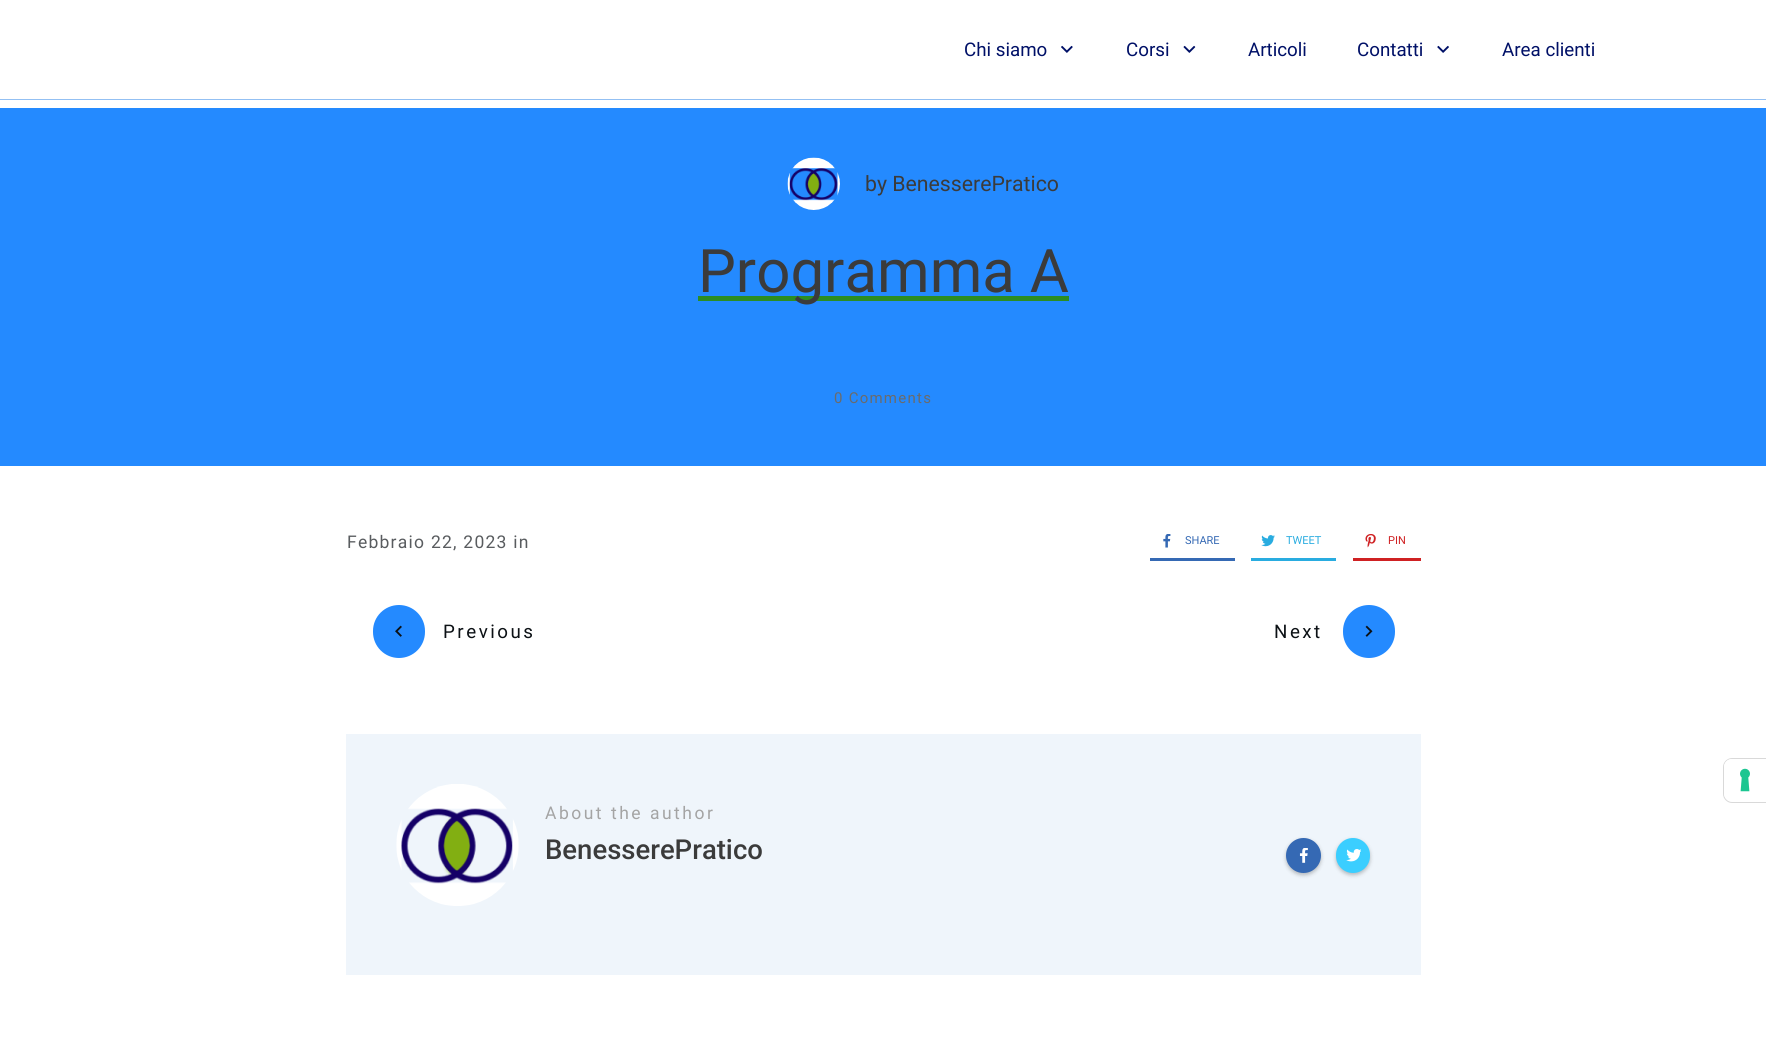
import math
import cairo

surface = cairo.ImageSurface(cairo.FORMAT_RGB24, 1766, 1040)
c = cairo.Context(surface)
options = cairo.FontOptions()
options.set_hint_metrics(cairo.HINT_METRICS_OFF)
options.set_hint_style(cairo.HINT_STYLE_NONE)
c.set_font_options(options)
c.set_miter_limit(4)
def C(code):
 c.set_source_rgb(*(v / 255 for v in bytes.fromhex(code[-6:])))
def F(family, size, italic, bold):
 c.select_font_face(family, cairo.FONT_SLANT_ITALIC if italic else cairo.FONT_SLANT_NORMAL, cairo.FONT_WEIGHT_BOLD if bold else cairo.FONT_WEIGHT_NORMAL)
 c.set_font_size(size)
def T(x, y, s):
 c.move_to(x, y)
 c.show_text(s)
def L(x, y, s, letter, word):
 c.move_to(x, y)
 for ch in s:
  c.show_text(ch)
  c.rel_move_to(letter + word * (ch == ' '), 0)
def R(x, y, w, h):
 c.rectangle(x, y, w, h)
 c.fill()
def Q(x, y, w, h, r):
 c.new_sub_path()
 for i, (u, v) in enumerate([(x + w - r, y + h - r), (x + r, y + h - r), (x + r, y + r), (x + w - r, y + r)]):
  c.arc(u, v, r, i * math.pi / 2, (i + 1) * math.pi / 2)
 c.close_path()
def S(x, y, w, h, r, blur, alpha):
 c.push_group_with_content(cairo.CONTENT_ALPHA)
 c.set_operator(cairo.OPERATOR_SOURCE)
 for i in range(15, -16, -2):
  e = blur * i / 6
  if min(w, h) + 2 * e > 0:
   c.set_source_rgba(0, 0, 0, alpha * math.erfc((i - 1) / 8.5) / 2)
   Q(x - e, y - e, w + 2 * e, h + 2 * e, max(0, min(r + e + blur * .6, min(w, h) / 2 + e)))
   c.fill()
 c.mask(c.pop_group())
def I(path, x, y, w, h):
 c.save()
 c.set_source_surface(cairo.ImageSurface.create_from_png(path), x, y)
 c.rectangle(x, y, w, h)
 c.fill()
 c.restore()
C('ffffff')
c.paint()
C('93c0f3')
R(0,99,1766,1)
F('Roboto',18.75,0,0)
C('001067')
T(964,56,'Chi siamo')
I('1.png',1061,45,12,8)
T(1126,56,'Corsi')
I('2.png',1183,45,13,8)
T(1248,56,'Articoli')
T(1357,56,'Contatti')
I('3.png',1437,45,12,8)
T(1502,56,'Area clienti')
C('248aff')
R(0,108,1766,358)
I('4.png',787,157,53,53)
F('Roboto',21.25,0,0)
C('3b3b3b')
T(865,191,'by BenesserePratico')
C('2c8d22')
R(698,296,371,5)
F('Roboto',60,0,0)
C('3b3b3b')
T(698,292,'Programma A')
F('Roboto',15,0,0)
C('6a6b6c')
L(834,403,'0 Comments',1.25,0)
F('Roboto',17.5,0,0)
C('595c5f')
L(347,548,'Febbraio 22, 2023 in',1.25,0)
C('3569b4')
R(1150,558,85,3)
I('5.png',1163,534,8,14)
F('Roboto',11,0,0)
T(1185,544,'SHARE')
C('29ace0')
R(1251,558,85,3)
I('6.png',1261,535,14,12)
T(1286,544,'TWEET')
C('cf2123')
R(1353,558,68,3)
I('7.png',1365,534,11,14)
T(1388,544,'PIN')
C('248aff')
Q(373,605,52,53,26)
c.fill()
I('8.png',395,625,7,12)
F('Roboto',18.75,0,0)
C('0c1115')
L(443,638,'Previous',2.5,0)
L(1274,638,'Next',2.5,0)
C('248aff')
Q(1343,605,52,53,26)
c.fill()
I('9.png',1365,625,8,12)
C('eff5fb')
R(346,734,1075,241)
I('10.png',396,784,123,122)
F('Roboto',17.5,0,0)
C('a4a4a4')
L(545,819,'About the author',2.5,0)
F('Roboto Medium',27.5,0,0)
C('3b3b3b')
T(545,859,'BenesserePratico')
C('000000')
S(1286,840,35,35,17.5,2,.25)
C('3569b4')
c.arc(1303.5,855.5,17.5,0,2 * math.pi)
c.fill()
I('11.png',1299,848,9,15)
C('000000')
S(1336,840,34,35,17,2,.25)
C('3bceff')
Q(1336,838,34,35,17)
c.fill()
I('12.png',1346,849,15,13)
c.new_path()
c.move_to(1732,758.5)
c.line_to(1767.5,758.5)
c.line_to(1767.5,802.5)
c.line_to(1732,802.5)
c.curve_to(1727.5,802.5,1723.5,798.5,1723.5,794)
c.line_to(1723.5,767)
c.curve_to(1723.5,762.5,1727.5,758.5,1732,758.5)
c.close_path()
C('d9d9d9')
c.set_line_width(1)
c.stroke()
C('ffffff')
c.new_path()
c.move_to(1732,759)
c.line_to(1766,759)
c.line_to(1766,801)
c.line_to(1732,801)
c.curve_to(1727.5,801,1724,797.5,1724,793)
c.line_to(1724,767)
c.curve_to(1724,762.5,1727.5,759,1732,759)
c.close_path()
c.fill()
I('13.png',1740,768,10,24)
surface.write_to_png('o.png')
